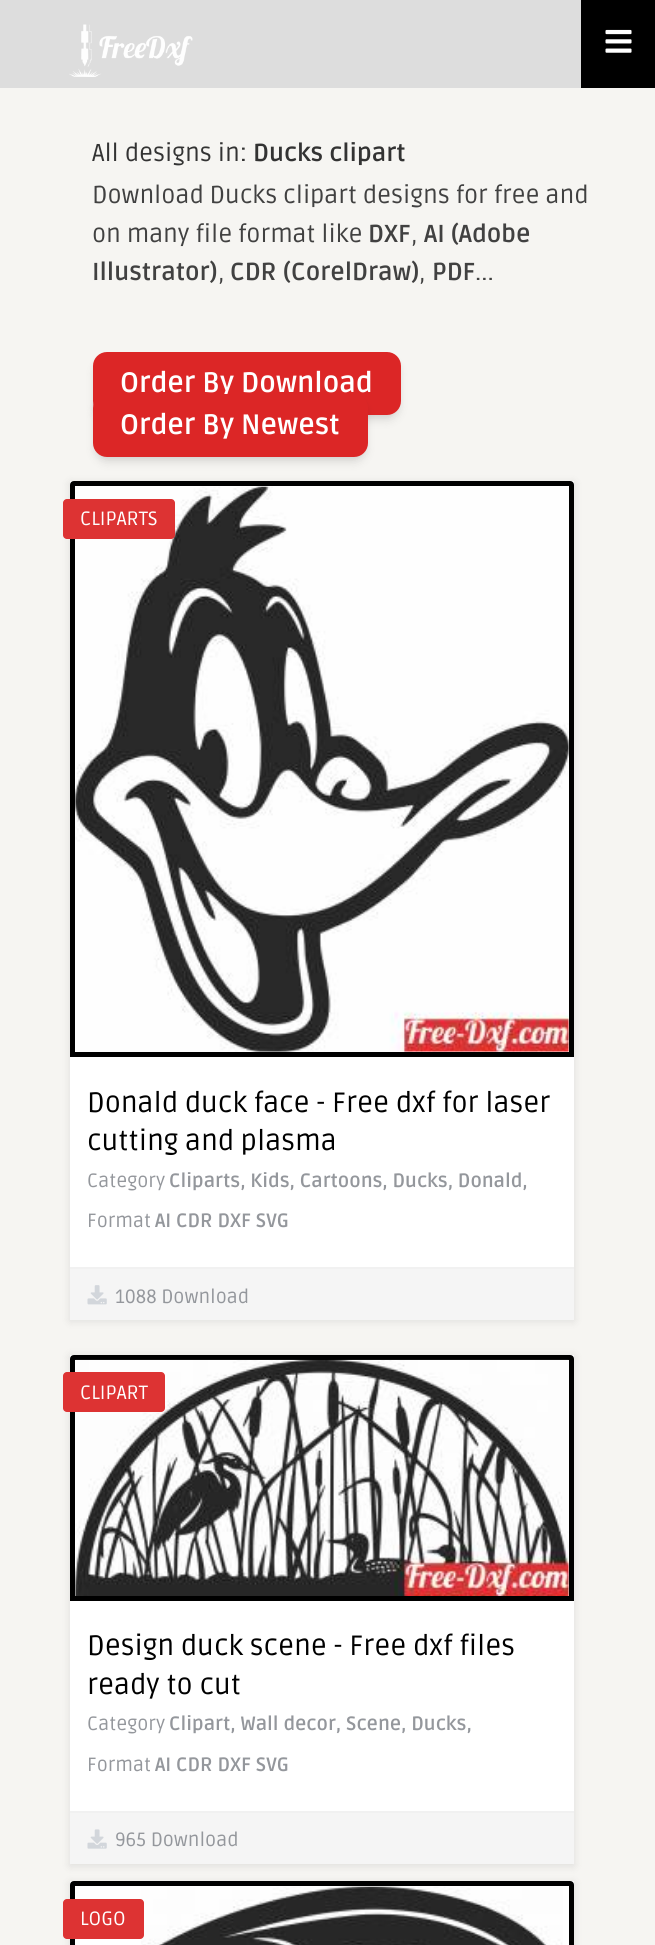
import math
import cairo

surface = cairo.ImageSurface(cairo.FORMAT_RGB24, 655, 1945)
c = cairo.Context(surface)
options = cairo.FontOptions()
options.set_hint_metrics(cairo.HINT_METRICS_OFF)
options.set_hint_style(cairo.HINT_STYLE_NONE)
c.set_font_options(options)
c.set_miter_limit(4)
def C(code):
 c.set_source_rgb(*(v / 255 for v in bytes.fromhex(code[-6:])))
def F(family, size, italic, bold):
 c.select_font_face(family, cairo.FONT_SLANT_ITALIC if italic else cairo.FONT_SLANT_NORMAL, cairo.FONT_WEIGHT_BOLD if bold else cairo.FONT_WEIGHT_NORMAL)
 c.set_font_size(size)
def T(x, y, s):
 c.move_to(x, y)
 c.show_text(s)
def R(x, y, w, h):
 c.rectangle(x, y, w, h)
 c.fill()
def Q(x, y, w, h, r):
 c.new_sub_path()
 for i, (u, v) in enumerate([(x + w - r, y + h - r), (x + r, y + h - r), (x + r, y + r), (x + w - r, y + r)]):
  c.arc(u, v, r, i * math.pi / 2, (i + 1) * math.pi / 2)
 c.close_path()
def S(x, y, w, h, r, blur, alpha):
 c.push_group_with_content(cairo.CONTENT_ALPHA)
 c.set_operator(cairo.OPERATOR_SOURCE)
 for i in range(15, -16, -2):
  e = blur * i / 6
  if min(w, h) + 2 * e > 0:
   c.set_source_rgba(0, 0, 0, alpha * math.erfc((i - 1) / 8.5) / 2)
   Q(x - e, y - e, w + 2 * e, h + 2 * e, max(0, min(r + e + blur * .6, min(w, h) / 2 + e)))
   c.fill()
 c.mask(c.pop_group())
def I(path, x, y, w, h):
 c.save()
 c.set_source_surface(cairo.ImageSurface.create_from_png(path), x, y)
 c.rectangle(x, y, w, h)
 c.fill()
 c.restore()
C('f6f5f2')
c.paint()
C('dddddd')
R(0,0,581,88)
I('1.png',69,24,124,53)
C('000000')
R(581,0,74,88)
I('2.png',605,29,27,24)
F('Ruda',24.5,0,0)
C('333333')
T(92,161,'All designs in:')
F('Ruda',24.5,0,1)
T(253,161,'Ducks clipart')
F('Ruda',24.5,0,0)
C('414141')
T(92,203,'Download Ducks clipart designs for free and')
T(92,242,'on many file format like')
F('Ruda',24.5,0,1)
T(368,242,'DXF')
F('Ruda',24.5,0,0)
T(411,242,',')
F('Ruda',24.5,0,1)
T(424,242,'AI (Adobe')
T(92,280,'Illustrator)')
F('Ruda',24.5,0,0)
T(218,280,',')
F('Ruda',24.5,0,1)
T(230,280,'CDR (CorelDraw)')
F('Ruda',24.5,0,0)
T(419,280,',')
F('Ruda',24.5,0,1)
T(432,280,'PDF')
F('Ruda',24.5,0,0)
T(475,280,'...')
C('000000')
S(95,357,304,60,12,3.5,.06)
S(95,361,304,59,12,5,.1)
C('dc2626')
Q(93,352,308,63,14)
c.fill()
F('Ruda',28,0,1)
C('ffffff')
T(120,392,'Order By Download')
C('000000')
S(95,399,271,60,12,3.5,.06)
S(95,403,271,59,12,5,.1)
C('dc2626')
Q(93,394,275,63,14)
c.fill()
C('ffffff')
T(120,434,'Order By Newest')
C('000000')
S(70,483,504,838,0,4.5,.1)
C('ffffff')
R(70,481,504,786)
c.new_path()
c.move_to(74,483.5)
c.line_to(570,483.5)
c.curve_to(571,483.5,571.5,484,571.5,485)
c.line_to(571.5,1054.5)
c.line_to(72.5,1054.5)
c.line_to(72.5,485)
c.curve_to(72.5,484,73,483.5,74,483.5)
c.close_path()
C('000000')
c.set_line_width(5)
c.stroke()
I('3.png',75,486,494,566)
C('dd3333')
Q(63,499,112,40,4)
c.fill()
F('Ruda',19.25,0,0)
C('ffffff')
T(80,525,'CLIPARTS')
F('Ruda',28,0,0)
C('000000')
T(87,1112,'Donald duck face - Free dxf for laser')
T(87,1150,'cutting and plasma')
F('Ruda',19.25,0,0)
C('94979c')
T(87,1187,'Category')
F('Ruda',19.25,0,1)
T(169,1187,'Cliparts, Kids, Cartoons, Ducks, Donald,')
F('Ruda',19.25,0,0)
T(87,1227,'Format')
F('Ruda',19.25,0,1)
T(155,1227,'AI CDR DXF SVG')
C('f5f5f5')
R(70,1269,504,51)
C('f1f1f1')
R(70,1267,504,2)
I('4.png',87,1285,20,20)
F('Ruda',19.25,0,0)
C('94979c')
T(115,1303,'1088 Download')
C('000000')
S(70,1356,504,510,0,4.5,.1)
C('ffffff')
R(70,1355,504,456)
c.new_path()
c.move_to(74,1357.5)
c.line_to(570,1357.5)
c.curve_to(571,1357.5,571.5,1358,571.5,1359)
c.line_to(571.5,1598.5)
c.line_to(72.5,1598.5)
c.line_to(72.5,1359)
c.curve_to(72.5,1358,73,1357.5,74,1357.5)
c.close_path()
C('000000')
c.stroke()
I('5.png',75,1359,494,237)
C('dd3333')
Q(63,1372,102,40,4)
c.fill()
C('ffffff')
T(80,1399,'CLIPART')
F('Ruda',28,0,0)
C('000000')
T(87,1655,'Design duck scene - Free dxf files')
T(87,1694,'ready to cut')
F('Ruda',19.25,0,0)
C('94979c')
T(87,1730,'Category')
F('Ruda',19.25,0,1)
T(169,1730,'Clipart, Wall decor, Scene, Ducks,')
F('Ruda',19.25,0,0)
T(87,1771,'Format')
F('Ruda',19.25,0,1)
T(155,1771,'AI CDR DXF SVG')
C('f5f5f5')
R(70,1813,504,51)
C('f1f1f1')
R(70,1811,504,2)
I('6.png',87,1829,20,20)
F('Ruda',19.25,0,0)
C('94979c')
T(115,1846,'965 Download')
C('000000')
S(70,1883,504,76,0,4.5,.1)
C('ffffff')
R(70,1881,504,64)
c.new_path()
c.move_to(74,1883.5)
c.line_to(570,1883.5)
c.curve_to(571,1883.5,571.5,1884,571.5,1885)
c.line_to(571.5,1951.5)
c.line_to(72.5,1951.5)
c.line_to(72.5,1885)
c.curve_to(72.5,1884,73,1883.5,74,1883.5)
c.close_path()
C('000000')
c.stroke()
I('7.png',141,1886,422,59)
C('dd3333')
Q(63,1899,81,40,4)
c.fill()
C('ffffff')
T(80,1925,'LOGO')
surface.write_to_png('o.png')
